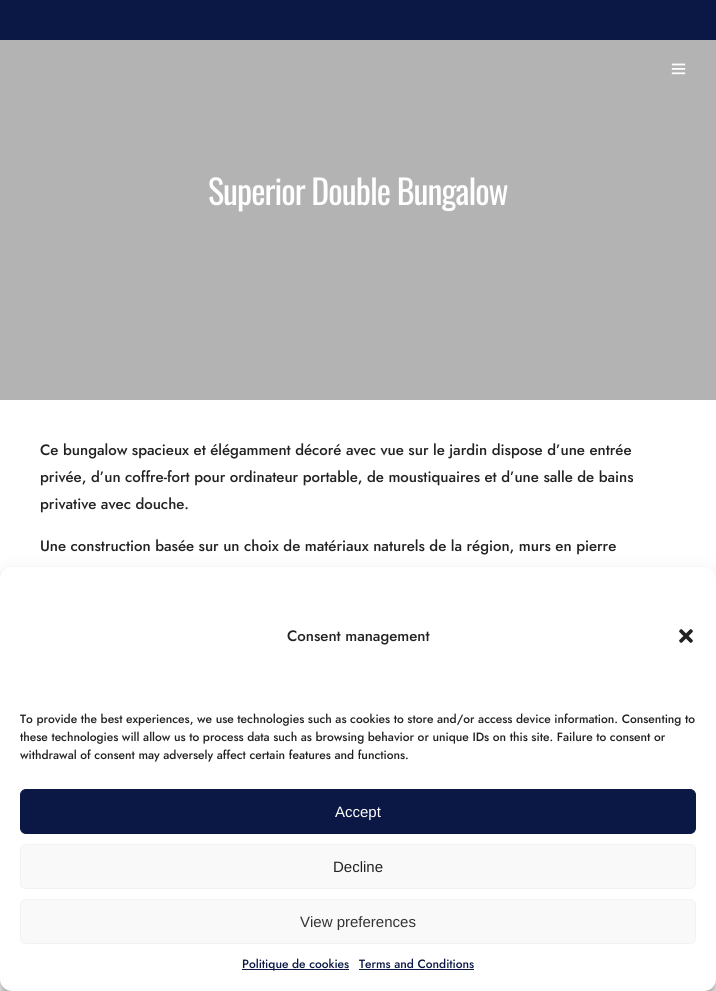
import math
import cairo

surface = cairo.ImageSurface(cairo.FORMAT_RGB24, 716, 991)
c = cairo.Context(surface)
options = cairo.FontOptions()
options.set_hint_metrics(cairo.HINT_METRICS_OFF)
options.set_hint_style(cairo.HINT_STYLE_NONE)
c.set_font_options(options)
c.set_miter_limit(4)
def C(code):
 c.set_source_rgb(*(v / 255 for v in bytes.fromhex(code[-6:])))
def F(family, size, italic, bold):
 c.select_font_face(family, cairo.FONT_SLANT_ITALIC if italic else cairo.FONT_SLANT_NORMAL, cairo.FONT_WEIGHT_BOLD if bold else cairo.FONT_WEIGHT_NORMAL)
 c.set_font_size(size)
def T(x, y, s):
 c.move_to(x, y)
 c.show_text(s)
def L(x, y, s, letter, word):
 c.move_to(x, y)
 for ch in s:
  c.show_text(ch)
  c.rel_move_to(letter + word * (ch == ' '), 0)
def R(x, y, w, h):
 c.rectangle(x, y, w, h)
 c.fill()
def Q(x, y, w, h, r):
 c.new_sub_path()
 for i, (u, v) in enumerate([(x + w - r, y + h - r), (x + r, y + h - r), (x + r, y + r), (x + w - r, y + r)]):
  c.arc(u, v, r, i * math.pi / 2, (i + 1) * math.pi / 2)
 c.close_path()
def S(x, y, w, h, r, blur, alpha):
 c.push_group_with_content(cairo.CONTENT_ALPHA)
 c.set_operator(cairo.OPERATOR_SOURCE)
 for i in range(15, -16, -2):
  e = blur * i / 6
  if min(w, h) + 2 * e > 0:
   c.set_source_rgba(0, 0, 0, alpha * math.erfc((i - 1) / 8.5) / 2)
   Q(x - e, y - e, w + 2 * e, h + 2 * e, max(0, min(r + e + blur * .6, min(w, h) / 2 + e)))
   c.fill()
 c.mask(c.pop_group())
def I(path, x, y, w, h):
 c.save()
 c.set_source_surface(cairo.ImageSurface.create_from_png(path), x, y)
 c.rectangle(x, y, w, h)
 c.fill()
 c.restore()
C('ffffff')
c.paint()
C('0b1846')
R(0,0,716,40)
C('b3b3b3')
R(0,40,716,360)
I('1.png',671,63,15,12)
F('Oswald',34,0,0)
C('ffffff')
L(208,205,'Superior Double Bungalow',-1,0)
F('Jost Medium',15,0,0)
C('222222')
T(40,455,'Ce bungalow spacieux et élégamment décoré avec vue sur le jardin dispose d’une entrée')
T(40,482,'privée, d’un coffre-fort pour ordinateur portable, de moustiquaires et d’une salle de bains')
T(40,509,'privative avec douche.')
T(40,551,'Une construction basée sur un choix de matériaux naturels de la région, murs en pierre')
C('000000')
S(0,573,716,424,12,3,.23)
S(0,577,716,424,12,10,.19)
C('ffffff')
Q(0,567,716,424,12)
c.fill()
C('222222')
T(287,641,'Consent management')
I('2.png',679,629,14,14)
F('Jost Medium',12,0,0)
T(20,723,'To provide the best experiences, we use technologies such as cookies to store and/or access device information. Consenting to')
T(20,741,'these technologies will allow us to process data such as browsing behavior or unique IDs on this site. Failure to consent or')
T(20,759,'withdrawal of consent may adversely affect certain features and functions.')
C('0b1846')
Q(20.5,789.5,675,44,5.5)
c.fill_preserve()
c.set_line_width(1)
c.stroke()
F('Liberation Sans',15,0,0)
C('ffffff')
T(335,817,'Accept')
C('f9f9f9')
Q(20.5,844.5,675,44,5.5)
c.fill_preserve()
C('f2f2f2')
c.stroke()
C('222222')
T(333,872,'Decline')
C('f9f9f9')
Q(20.5,899.5,675,44,5.5)
c.fill_preserve()
C('f2f2f2')
c.stroke()
C('333333')
T(300,927,'View preferences')
C('0b1846')
R(242,969,107,1)
F('Jost Medium',12,0,0)
T(242,968,'Politique de cookies')
T(359,968,'Terms and Conditions')
R(359,969,115,1)
surface.write_to_png('o.png')
